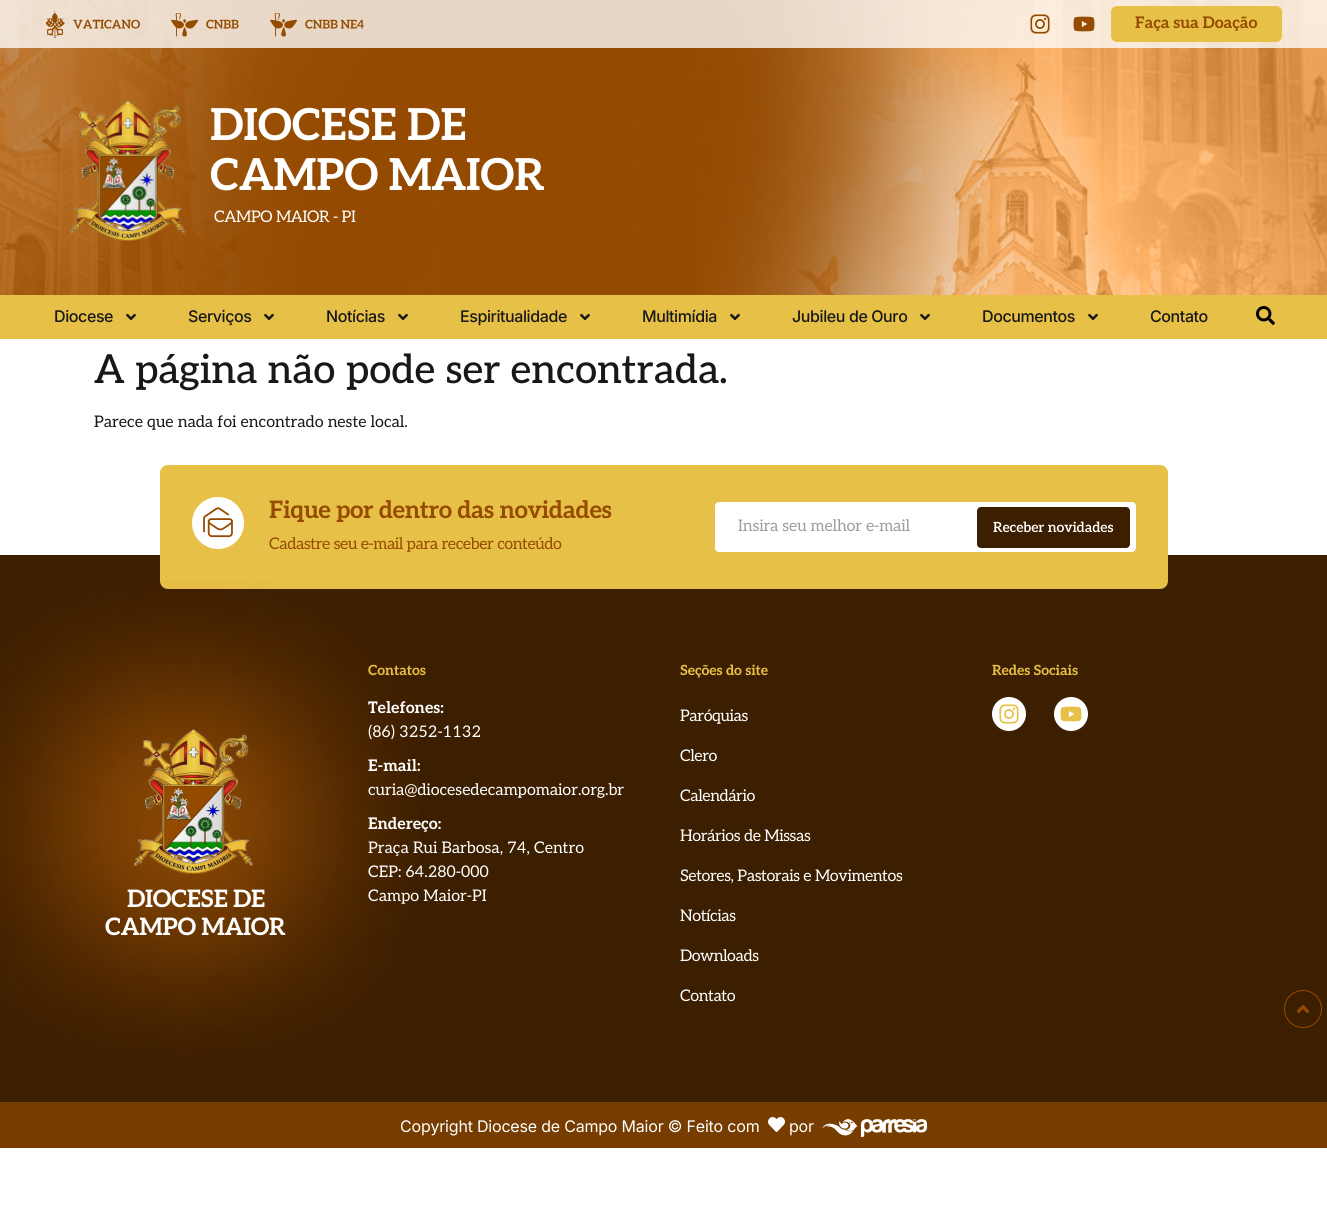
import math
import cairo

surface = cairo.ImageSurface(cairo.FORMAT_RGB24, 1327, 1207)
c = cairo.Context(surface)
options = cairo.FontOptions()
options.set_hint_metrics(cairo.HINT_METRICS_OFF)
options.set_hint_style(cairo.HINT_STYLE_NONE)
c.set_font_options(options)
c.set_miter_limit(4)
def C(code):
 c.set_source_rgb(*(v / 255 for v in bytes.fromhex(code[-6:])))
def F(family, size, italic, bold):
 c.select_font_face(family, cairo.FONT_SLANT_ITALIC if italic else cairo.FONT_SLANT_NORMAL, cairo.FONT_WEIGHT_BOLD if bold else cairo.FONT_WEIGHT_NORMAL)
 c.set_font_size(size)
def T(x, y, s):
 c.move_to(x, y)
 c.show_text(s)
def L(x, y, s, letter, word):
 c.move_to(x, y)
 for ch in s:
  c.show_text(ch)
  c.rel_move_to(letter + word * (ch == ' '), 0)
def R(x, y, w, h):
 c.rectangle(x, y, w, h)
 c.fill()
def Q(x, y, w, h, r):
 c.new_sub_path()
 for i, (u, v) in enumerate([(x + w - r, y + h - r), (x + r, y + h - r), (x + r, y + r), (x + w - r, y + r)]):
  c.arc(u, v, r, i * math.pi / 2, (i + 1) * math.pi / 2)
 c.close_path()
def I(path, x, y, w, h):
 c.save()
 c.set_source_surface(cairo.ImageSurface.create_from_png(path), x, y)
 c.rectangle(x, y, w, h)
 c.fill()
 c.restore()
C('ffffff')
c.paint()
I('1.png',0,0,1327,295)
c.set_source_rgba(0.996,0.996,0.996,0.78)
R(0,0,1327,48)
I('2.png',46,11,94,27)
I('3.png',171,13,68,24)
I('4.png',270,13,94,24)
I('5.png',1030,14,20,20)
I('6.png',1073,16,22,16)
C('e7c047')
Q(1111,6,171,36,6)
c.fill()
F('Aleo',16,0,1)
C('954b00')
L(1135,28,'Faça sua Doação',-.1,0)
I('7.png',70,100,116,142)
F('Aleo',44,0,1)
C('ffffff')
L(210,140,'DIOCESE DE',-.4,0)
L(210,190,'CAMPO MAIOR',-.4,0)
F('Aleo',16,0,0)
L(214,222,'CAMPO MAIOR - PI',-.4,0)
C('e7c047')
R(0,295,1327,44)
F('Inter Medium',16,0,0)
C('181818')
L(54,322,'Diocese',-.4,0)
I('8.png',126,313,10,8)
L(188,322,'Serviços',-.4,0)
I('8.png',264,313,10,8)
L(326,322,'Notícias',-.4,0)
I('8.png',398,313,10,8)
L(460,322,'Espiritualidade',-.4,0)
I('8.png',580,313,10,8)
L(642,322,'Multimídia',-.4,0)
I('8.png',730,313,10,8)
L(792,322,'Jubileu de Ouro',-.4,0)
I('8.png',920,313,10,8)
L(982,322,'Documentos',-.4,0)
I('8.png',1088,313,10,8)
L(1150,322,'Contato',-.4,0)
I('9.png',1256,306,19,19)
F('Aleo Medium',40,0,0)
T(94,383,'A página não pode ser encontrada.')
F('Aleo',16,0,0)
T(94,427,'Parece que nada foi encontrado neste local.')
C('3c1e00')
R(0,555,1327,547)
C('e7c047')
Q(160,465,1008,124,8)
c.fill()
C('ffffff')
c.arc(218,523,26,0,2 * math.pi)
c.fill()
I('10.png',203,507,30,31)
F('Aleo',24,0,1)
C('954b00')
L(269,518,'Fique por dentro das novidades',-.4,0)
F('Aleo',16,0,0)
L(269,549,'Cadastre seu e-mail para receber conteúdo',-.4,0)
C('ffffff')
Q(715,502,421,50,4)
c.fill()
C('9d9d9d')
L(738,531,'Insira seu melhor e-mail',-.1,0)
C('3c1e00')
Q(977,507,153,41,4)
c.fill()
F('Aleo SemiBold',14,0,0)
C('ffffff')
L(993,532,'Receber novidades',-.1,0)
I('13.png',0,581,419,479)
F('Aleo',14,0,1)
C('e7c047')
L(368,675,'Contatos',-.1,0)
F('Aleo',16,0,1)
C('ffffff')
T(368,713,'Telefones:')
F('Aleo',16,0,0)
T(368,737,'(86) 3252-1132')
F('Aleo',16,0,1)
T(368,771,'E-mail:')
F('Aleo',16,0,0)
T(368,795,'curia@diocesedecampomaior.org.br')
F('Aleo',16,0,1)
T(368,829,'Endereço:')
F('Aleo',16,0,0)
T(368,853,'Praça Rui Barbosa, 74, Centro')
T(368,877,'CEP: 64.280-000')
T(368,901,'Campo Maior-PI')
F('Aleo',14,0,1)
C('e7c047')
L(680,675,'Seções do site',-.1,0)
F('Aleo',16,0,0)
C('ffffff')
L(680,721,'Paróquias',-.4,0)
L(680,761,'Clero',-.4,0)
L(680,801,'Calendário',-.4,0)
L(680,841,'Horários de Missas',-.4,0)
L(680,881,'Setores, Pastorais e Movimentos',-.4,0)
L(680,921,'Notícias',-.4,0)
L(680,961,'Downloads',-.4,0)
L(680,1001,'Contato',-.4,0)
F('Aleo',14,0,1)
C('e7c047')
L(992,675,'Redes Sociais',-.1,0)
C('ffffff')
c.new_path()
c.arc(1009,714,17,0,2 * math.pi)
c.fill()
I('11.png',999,704,20,20)
c.arc(1071,714,17,0,2 * math.pi)
c.fill()
I('12.png',1060,706,22,16)
I('14.png',134,729,119,145)
F('Aleo',24,0,1)
L(127,907,'DIOCESE DE',-.4,0)
L(105,935,'CAMPO MAIOR',-.4,0)
c.new_path()
c.arc(1303,1009,18.5,0,2 * math.pi)
C('954b00')
c.set_line_width(1)
c.stroke()
I('15.png',1296,1005,14,8)
C('773c00')
R(0,1102,1327,46)
F('Inter',16,0,0)
C('ffffff')
L(400,1132,'Copyright Diocese de Campo Maior © Feito com',-.2,0)
I('16.png',768,1117,17,15)
L(789,1132,'por',-.2,0)
I('17.png',822,1119,105,18)
surface.write_to_png('o.png')
